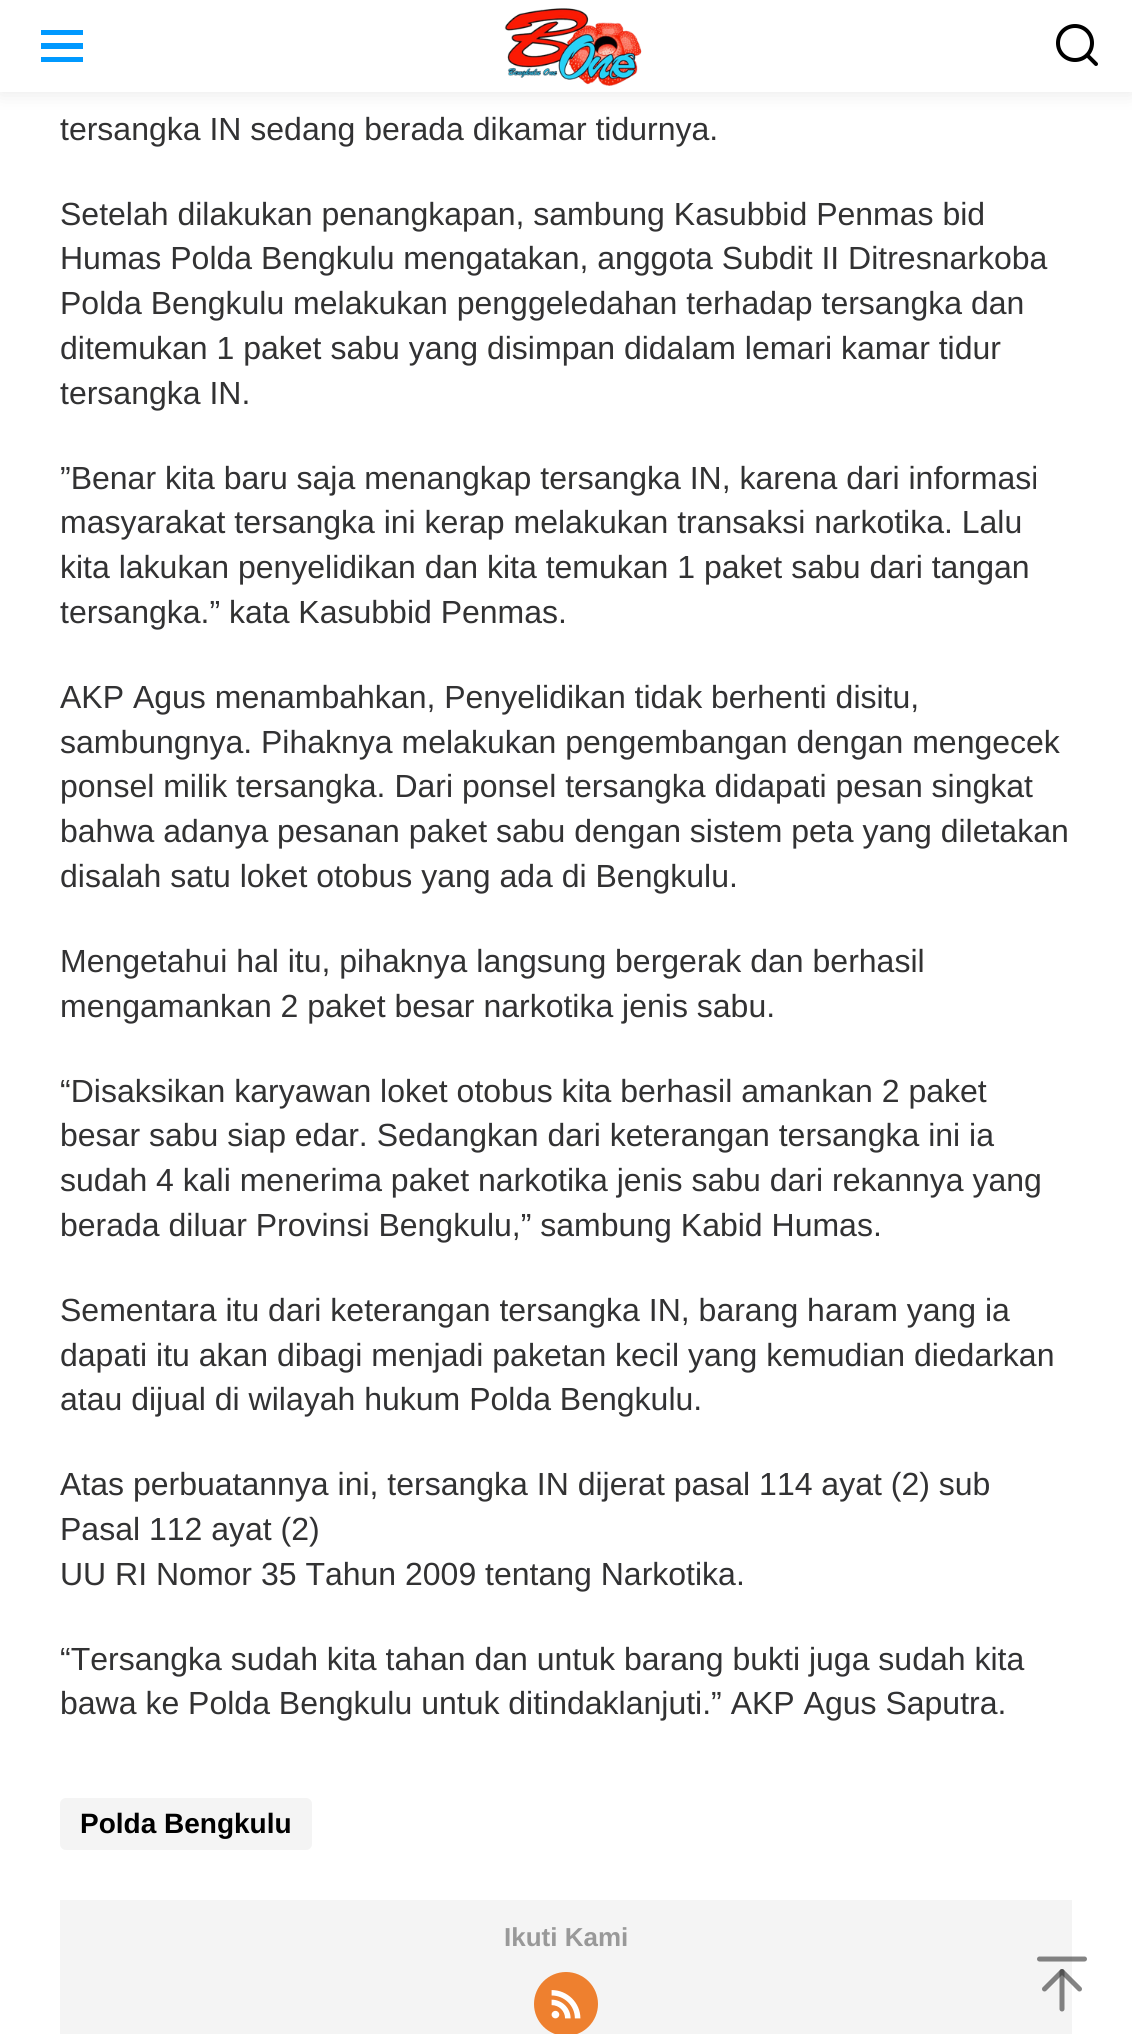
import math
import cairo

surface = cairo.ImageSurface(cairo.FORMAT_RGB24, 1132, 2034)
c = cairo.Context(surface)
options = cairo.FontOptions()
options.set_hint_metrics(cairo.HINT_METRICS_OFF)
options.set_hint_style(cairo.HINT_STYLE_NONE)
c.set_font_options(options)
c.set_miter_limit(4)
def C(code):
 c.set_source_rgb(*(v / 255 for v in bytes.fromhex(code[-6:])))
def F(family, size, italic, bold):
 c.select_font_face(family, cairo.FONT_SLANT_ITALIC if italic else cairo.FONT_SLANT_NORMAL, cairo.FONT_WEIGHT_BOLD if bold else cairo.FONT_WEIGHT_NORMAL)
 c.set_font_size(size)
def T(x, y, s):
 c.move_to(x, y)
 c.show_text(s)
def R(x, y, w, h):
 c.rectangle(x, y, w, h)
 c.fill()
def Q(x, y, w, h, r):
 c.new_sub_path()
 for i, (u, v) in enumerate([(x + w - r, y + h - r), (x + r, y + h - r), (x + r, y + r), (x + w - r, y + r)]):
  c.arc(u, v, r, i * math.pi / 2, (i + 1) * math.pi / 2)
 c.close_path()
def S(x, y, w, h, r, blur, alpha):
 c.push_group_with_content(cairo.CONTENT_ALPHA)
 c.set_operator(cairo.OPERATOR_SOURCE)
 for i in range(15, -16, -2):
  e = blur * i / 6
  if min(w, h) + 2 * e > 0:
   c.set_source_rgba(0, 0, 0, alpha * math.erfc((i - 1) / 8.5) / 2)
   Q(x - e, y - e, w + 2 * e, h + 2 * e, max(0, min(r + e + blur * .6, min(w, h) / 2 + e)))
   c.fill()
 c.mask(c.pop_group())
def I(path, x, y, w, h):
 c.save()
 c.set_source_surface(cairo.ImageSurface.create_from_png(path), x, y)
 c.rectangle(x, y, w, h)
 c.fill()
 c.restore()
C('ffffff')
c.paint()
C('000000')
S(0,0,1132,92,0,10,.1)
C('ffffff')
R(0,0,1132,92)
C('0099ff')
c.new_path()
c.move_to(41,30)
c.line_to(83,30)
c.line_to(83,35)
c.line_to(41,35)
c.close_path()
c.move_to(41,43)
c.line_to(83,43)
c.line_to(83,49)
c.line_to(41,49)
c.close_path()
c.move_to(41,57)
c.line_to(83,57)
c.line_to(83,62)
c.line_to(41,62)
c.close_path()
c.fill()
I('1.png',504,8,138,78)
c.new_path()
c.move_to(1096,64)
c.line_to(1087,55)
c.move_to(1092,43)
c.curve_to(1092,52.5,1084.5,60,1075,60)
c.curve_to(1065.5,60,1058,52.5,1058,43)
c.curve_to(1058,33.5,1065.5,26,1075,26)
c.curve_to(1084.5,26,1092,33.5,1092,43)
c.close_path()
C('000000')
c.set_line_width(4)
c.set_line_cap(cairo.LINE_CAP_ROUND)
c.stroke()
F('Liberation Sans',32,0,0)
C('323233')
T(60,140,'tersangka IN sedang berada dikamar tidurnya.')
T(60,225,'Setelah dilakukan penangkapan, sambung Kasubbid Penmas bid')
T(60,269,'Humas Polda Bengkulu mengatakan, anggota Subdit II Ditresnarkoba')
T(60,314,'Polda Bengkulu melakukan penggeledahan terhadap tersangka dan')
T(60,359,'ditemukan 1 paket sabu yang disimpan didalam lemari kamar tidur')
T(60,404,'tersangka IN.')
T(60,489,'”Benar kita baru saja menangkap tersangka IN, karena dari informasi')
T(60,533,'masyarakat tersangka ini kerap melakukan transaksi narkotika. Lalu')
T(60,578,'kita lakukan penyelidikan dan kita temukan 1 paket sabu dari tangan')
T(60,623,'tersangka.” kata Kasubbid Penmas.')
T(60,708,'AKP Agus menambahkan, Penyelidikan tidak berhenti disitu,')
T(60,753,'sambungnya. Pihaknya melakukan pengembangan dengan mengecek')
T(60,797,'ponsel milik tersangka. Dari ponsel tersangka didapati pesan singkat')
T(60,842,'bahwa adanya pesanan paket sabu dengan sistem peta yang diletakan')
T(60,887,'disalah satu loket otobus yang ada di Bengkulu.')
T(60,972,'Mengetahui hal itu, pihaknya langsung bergerak dan berhasil')
T(60,1017,'mengamankan 2 paket besar narkotika jenis sabu.')
T(60,1102,'“Disaksikan karyawan loket otobus kita berhasil amankan 2 paket')
T(60,1146,'besar sabu siap edar. Sedangkan dari keterangan tersangka ini ia')
T(60,1191,'sudah 4 kali menerima paket narkotika jenis sabu dari rekannya yang')
T(60,1236,'berada diluar Provinsi Bengkulu,” sambung Kabid Humas.')
T(60,1321,'Sementara itu dari keterangan tersangka IN, barang haram yang ia')
T(60,1366,'dapati itu akan dibagi menjadi paketan kecil yang kemudian diedarkan')
T(60,1410,'atau dijual di wilayah hukum Polda Bengkulu.')
T(60,1495,'Atas perbuatannya ini, tersangka IN dijerat pasal 114 ayat (2) sub')
T(60,1540,'Pasal 112 ayat (2)')
T(60,1585,'UU RI Nomor 35 Tahun 2009 tentang Narkotika.')
T(60,1670,'“Tersangka sudah kita tahan dan untuk barang bukti juga sudah kita')
T(60,1714,'bawa ke Polda Bengkulu untuk ditindaklanjuti.” AKP Agus Saputra.')
C('f4f4f4')
Q(60,1798,252,52,6)
c.fill()
F('Liberation Sans',28,0,1)
C('000000')
T(80,1833,'Polda Bengkulu')
C('f4f4f4')
R(60,1900,1012,134)
F('Liberation Sans',26,0,1)
C('999999')
T(504,1946,'Ikuti Kami')
C('ee802f')
c.new_path()
c.arc(566,2004,32,0,2 * math.pi)
c.fill()
I('2.png',551,1990,30,29)
c.new_path()
c.move_to(1062,2009)
c.line_to(1062,1971.5)
C('808080')
c.set_line_width(5)
c.set_line_join(cairo.LINE_JOIN_ROUND)
c.stroke()
c.new_path()
c.move_to(1044.5,1989)
c.line_to(1062,1971.5)
c.line_to(1079.5,1989)
c.move_to(1039.5,1959)
c.line_to(1084.5,1959)
c.set_source_rgba(0.196,0.196,0.2,0.6)
c.stroke()
surface.write_to_png('o.png')
